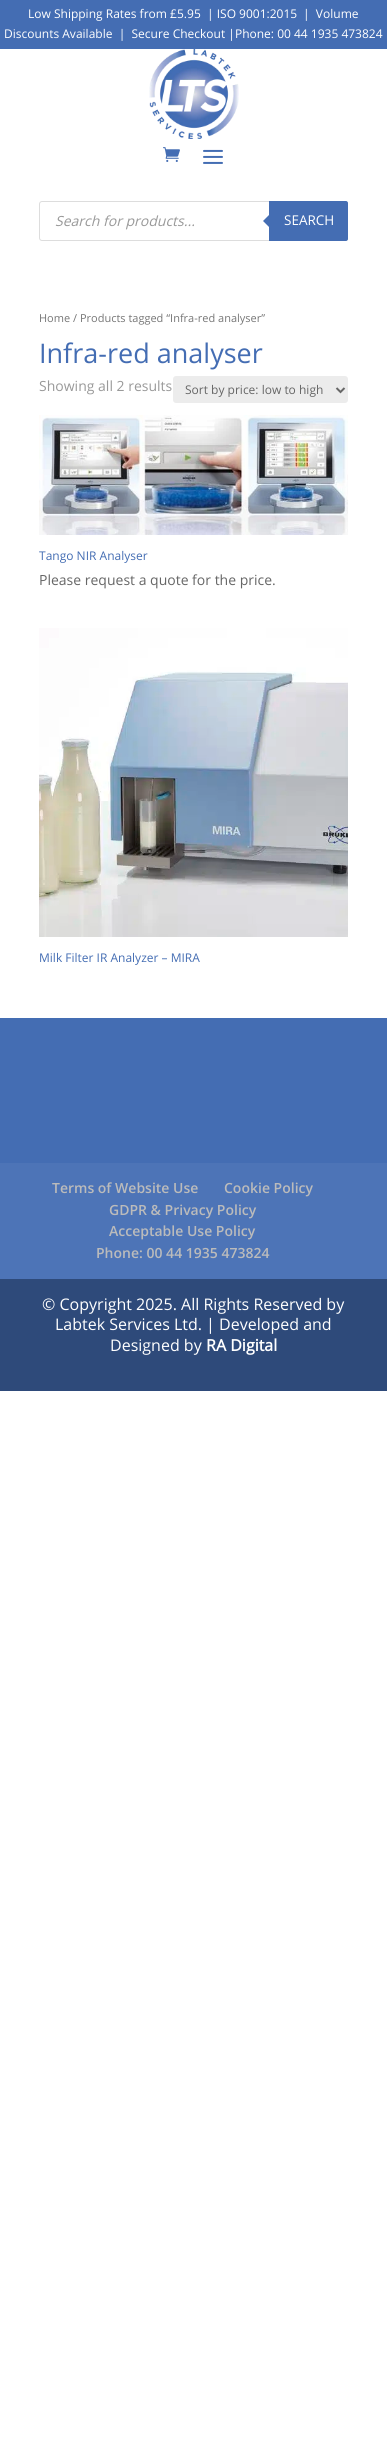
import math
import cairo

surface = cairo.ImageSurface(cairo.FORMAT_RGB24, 387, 2454)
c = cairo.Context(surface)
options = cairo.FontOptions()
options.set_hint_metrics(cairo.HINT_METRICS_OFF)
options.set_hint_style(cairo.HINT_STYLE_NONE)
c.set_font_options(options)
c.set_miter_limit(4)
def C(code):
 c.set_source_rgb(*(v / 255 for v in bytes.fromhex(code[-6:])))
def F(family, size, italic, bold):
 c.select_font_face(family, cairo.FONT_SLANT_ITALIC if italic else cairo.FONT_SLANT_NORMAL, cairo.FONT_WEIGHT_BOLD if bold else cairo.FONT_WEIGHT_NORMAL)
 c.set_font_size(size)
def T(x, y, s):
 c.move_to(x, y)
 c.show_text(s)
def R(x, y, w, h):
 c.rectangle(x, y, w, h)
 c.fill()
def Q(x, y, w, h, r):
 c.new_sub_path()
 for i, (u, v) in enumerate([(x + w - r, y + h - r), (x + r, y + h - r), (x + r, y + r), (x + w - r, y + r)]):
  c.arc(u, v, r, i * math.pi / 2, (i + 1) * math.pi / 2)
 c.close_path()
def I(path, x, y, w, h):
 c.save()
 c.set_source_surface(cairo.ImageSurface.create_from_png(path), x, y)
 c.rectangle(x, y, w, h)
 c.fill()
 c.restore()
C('ffffff')
c.paint()
C('446db3')
R(0,0,387,49)
F('Open Sans',12,0,0)
C('ffffff')
T(28,18,'Low Shipping Rates from £5.95  | ISO 9001:2015')
T(303,18,'|  Volume')
T(4,38,'Discounts Available  |  Secure Checkout |Phone: 00 44 1935 473824')
I('1.png',149,49,90,90)
I('2.png',163,147,17,15)
I('3.png',203,149,20,15)
Q(39.5,201.5,308,39,2.5)
C('dddddd')
c.set_line_width(1)
c.stroke()
F('Open Sans',14,1,0)
C('999999')
T(55,226,'Search for products...')
C('446db3')
c.new_path()
c.move_to(269,201)
c.line_to(346,201)
c.curve_to(347,201,348,202,348,203)
c.line_to(348,239)
c.curve_to(348,240,347,241,346,241)
c.line_to(269,241)
c.close_path()
c.fill()
c.new_path()
c.move_to(271,213)
c.line_to(271,229)
c.line_to(263,221)
c.close_path()
c.fill()
F('Open Sans',13.5,0,0)
C('ffffff')
T(284,225,'SEARCH')
F('Open Sans',11,0,0)
C('767676')
T(39,322,'Home / Products tagged “Infra-red analyser”')
F('Open Sans',27,0,0)
C('446db3')
T(39,363,'Infra-red analyser')
F('Open Sans',14,0,0)
C('999999')
T(39,391,'Showing all 2 results')
C('ececec')
Q(173,376,175,27,3)
c.fill()
c.new_path()
c.move_to(336.5,388)
c.line_to(340.5,392)
c.line_to(344.5,388)
C('666666')
c.set_line_width(2)
c.stroke()
F('Open Sans',12,0,0)
T(185,394,'Sort by price: low to high')
I('4.png',39,415,309,120)
C('446db3')
T(39,560,'Tango NIR Analyser')
F('Open Sans',14,0,0)
C('666666')
T(39,585,'Please request a quote for the price.')
I('5.png',39,628,309,309)
F('Open Sans',12,0,0)
C('446db3')
T(39,962,'Milk Filter IR Analyzer – MIRA')
R(0,1018,387,145)
C('4d74b7')
R(0,1163,387,116)
F('Open Sans SemiBold',14,0,0)
C('bbbbbb')
T(52,1193,'Terms of Website Use')
T(224,1193,'Cookie Policy')
T(109,1215,'GDPR & Privacy Policy')
T(109,1236,'Acceptable Use Policy')
T(96,1258,'Phone: 00 44 1935 473824')
C('2e4a7a')
R(0,1279,387,112)
F('Open Sans',16,0,0)
C('ffffff')
T(42,1310,'© Copyright 2025. All Rights Reserved by')
T(55,1330,'Labtek Services Ltd. | Developed and')
T(110,1351,'Designed by')
F('Open Sans',16,0,1)
T(206,1351,'RA Digital')
surface.write_to_png('o.png')
